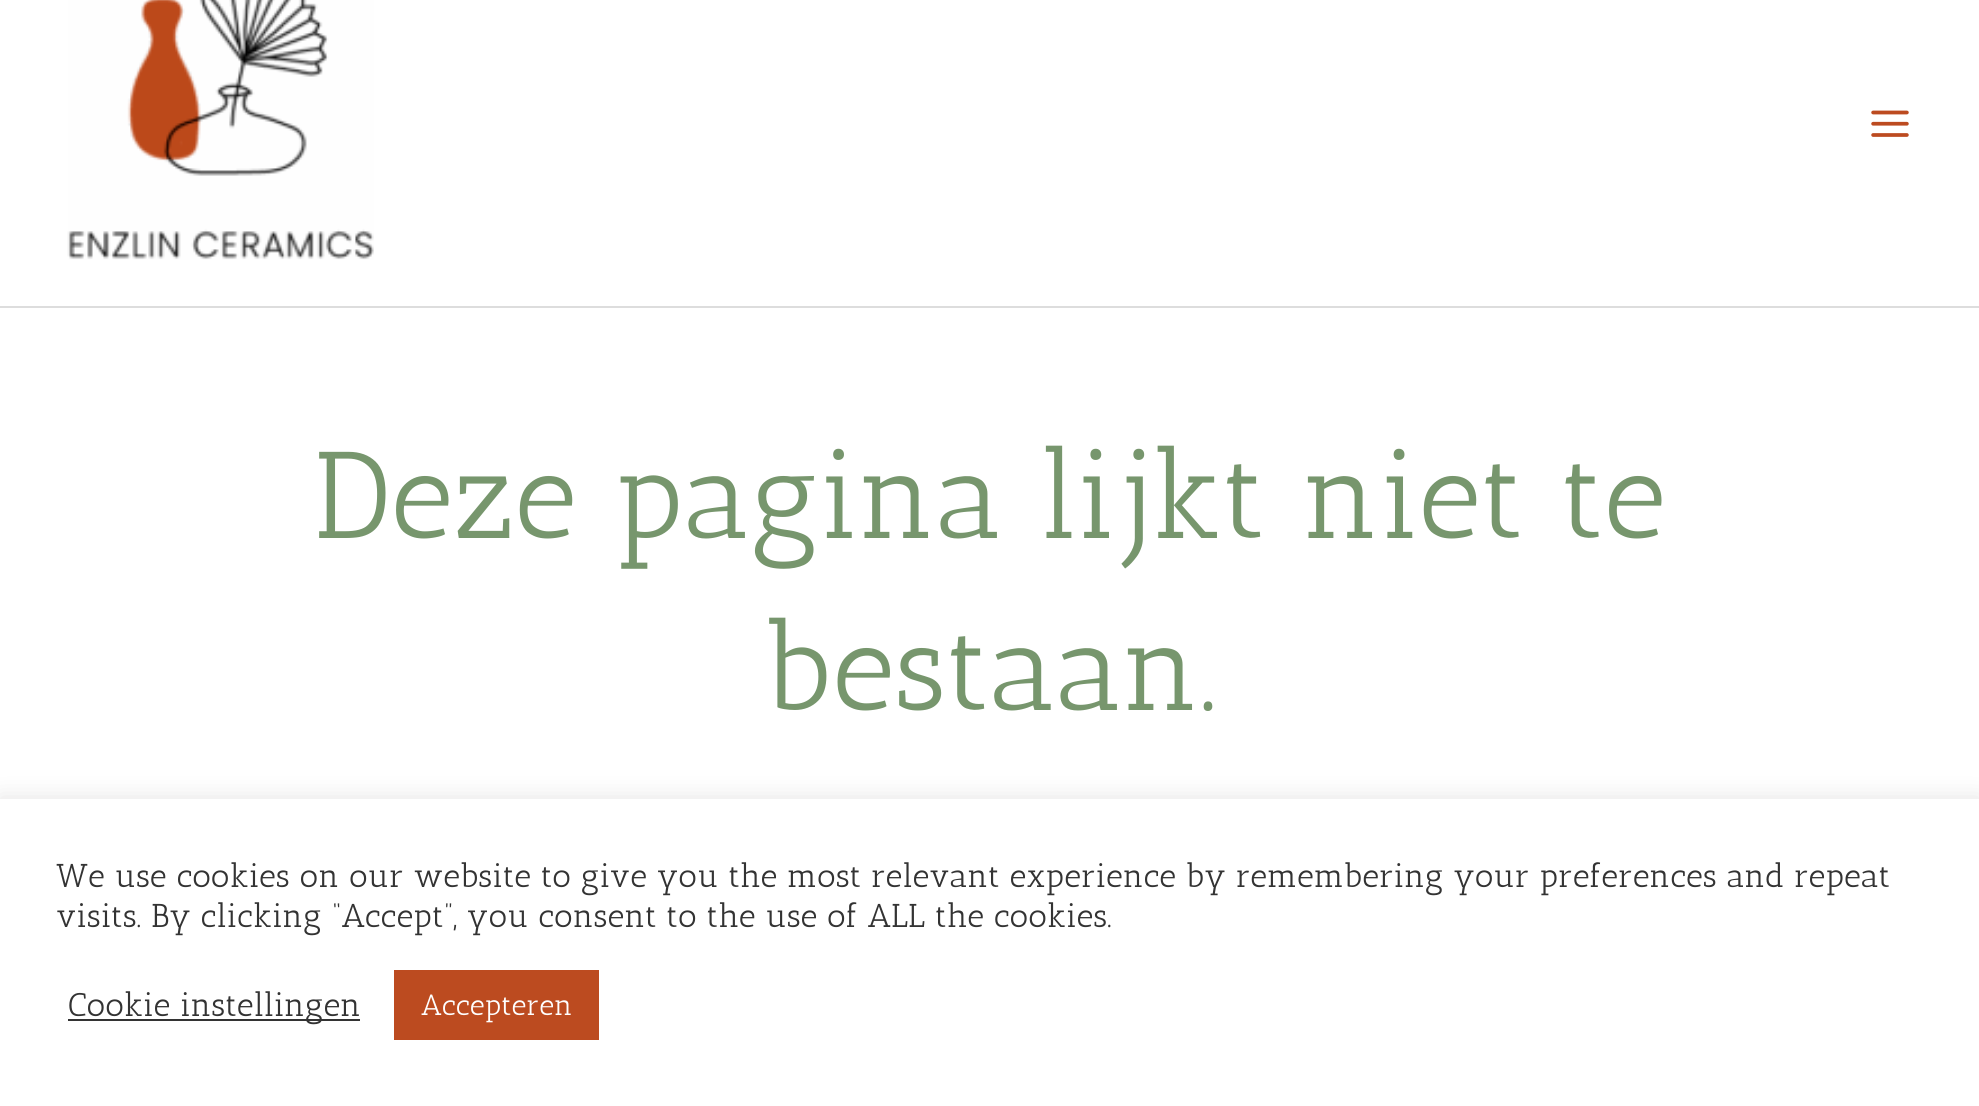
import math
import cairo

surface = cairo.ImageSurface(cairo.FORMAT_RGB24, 1979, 1106)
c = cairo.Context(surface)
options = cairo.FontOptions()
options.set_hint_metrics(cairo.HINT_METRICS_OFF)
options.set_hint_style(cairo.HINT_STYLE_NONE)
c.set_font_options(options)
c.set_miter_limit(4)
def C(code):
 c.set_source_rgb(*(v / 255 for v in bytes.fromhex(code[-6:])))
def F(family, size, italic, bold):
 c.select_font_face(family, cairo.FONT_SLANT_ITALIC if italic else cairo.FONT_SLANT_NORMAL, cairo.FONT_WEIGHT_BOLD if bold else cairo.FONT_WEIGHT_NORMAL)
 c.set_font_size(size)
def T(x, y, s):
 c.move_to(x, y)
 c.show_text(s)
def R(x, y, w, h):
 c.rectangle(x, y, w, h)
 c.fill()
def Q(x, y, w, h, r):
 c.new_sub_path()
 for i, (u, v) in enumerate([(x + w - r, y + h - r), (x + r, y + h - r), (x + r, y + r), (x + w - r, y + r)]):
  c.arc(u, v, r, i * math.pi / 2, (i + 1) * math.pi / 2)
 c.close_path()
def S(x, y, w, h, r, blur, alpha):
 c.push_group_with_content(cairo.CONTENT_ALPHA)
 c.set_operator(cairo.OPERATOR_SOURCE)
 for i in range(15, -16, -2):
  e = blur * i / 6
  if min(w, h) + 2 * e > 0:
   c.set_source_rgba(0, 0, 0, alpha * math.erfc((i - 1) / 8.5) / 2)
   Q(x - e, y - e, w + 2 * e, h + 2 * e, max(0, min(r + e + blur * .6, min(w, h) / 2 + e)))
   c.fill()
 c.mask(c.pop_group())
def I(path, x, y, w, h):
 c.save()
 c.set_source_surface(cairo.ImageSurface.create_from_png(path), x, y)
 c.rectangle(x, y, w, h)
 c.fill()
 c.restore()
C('ffffff')
c.paint()
C('dddddd')
R(0,306,1979,2)
I('1.png',67,0,307,260)
I('2.png',1871,110,38,27)
F('Antic Slab',123.1,0,0)
C('77966d')
T(313,538,'Deze pagina lijkt niet te')
T(763,710,'bestaan.')
C('acabab')
S(0,797,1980,308,0,11,.3)
C('ffffff')
R(0,799,1979,307)
F('Antic Slab',33,0,0)
C('333333')
T(56,887,'We use cookies on our website to give you the most relevant experience by remembering your preferences and repeat')
T(56,927,'visits. By clicking “Accept”, you consent to the use of ALL the cookies.')
R(68,1019,292,2)
T(68,1016,'Cookie instellingen')
C('bc4b20')
R(394,970,205,70)
F('Antic Slab',29.25,0,0)
C('ffffff')
T(421,1015,'Accepteren')
surface.write_to_png('o.png')
